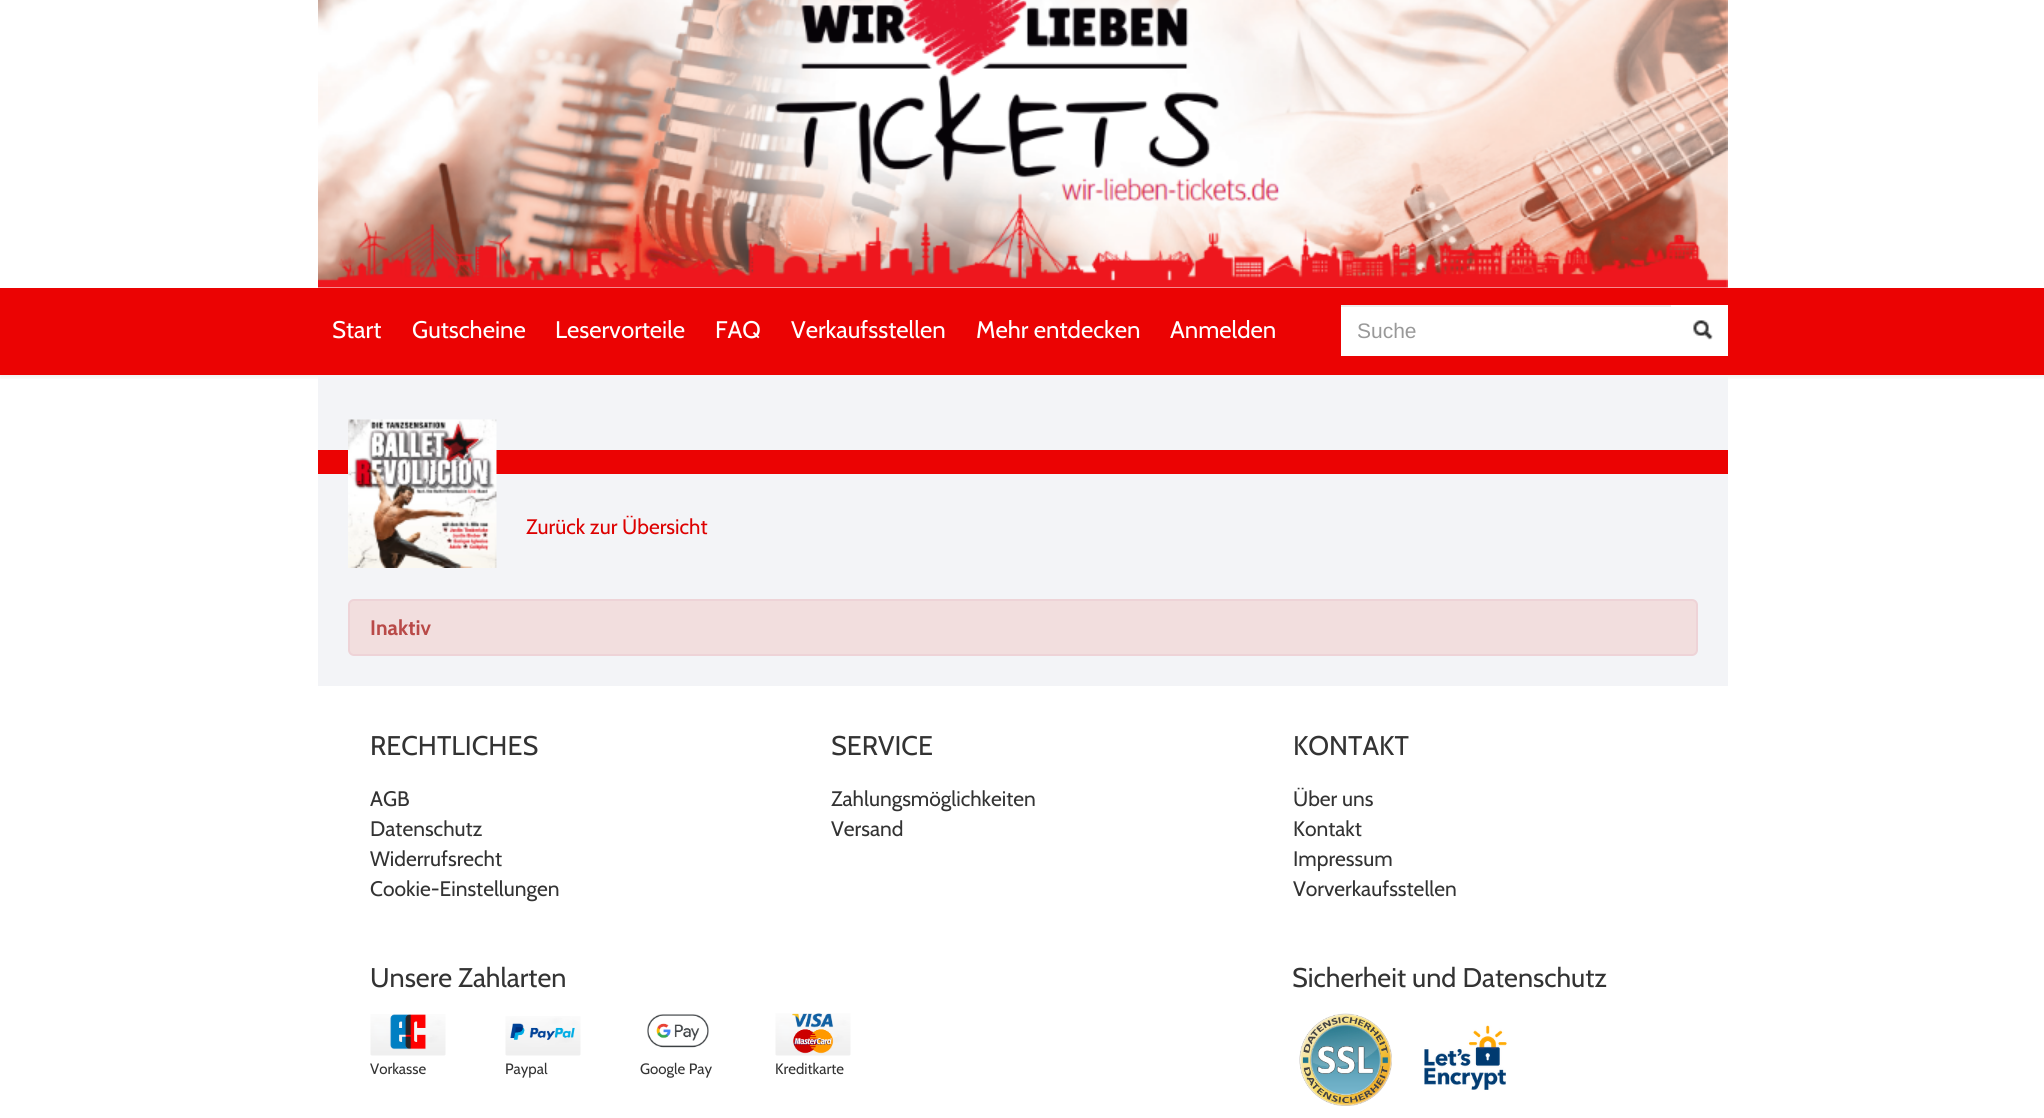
import math
import cairo

surface = cairo.ImageSurface(cairo.FORMAT_RGB24, 2044, 1118)
c = cairo.Context(surface)
options = cairo.FontOptions()
options.set_hint_metrics(cairo.HINT_METRICS_OFF)
options.set_hint_style(cairo.HINT_STYLE_NONE)
c.set_font_options(options)
c.set_miter_limit(4)
def C(code):
 c.set_source_rgb(*(v / 255 for v in bytes.fromhex(code[-6:])))
def F(family, size, italic, bold):
 c.select_font_face(family, cairo.FONT_SLANT_ITALIC if italic else cairo.FONT_SLANT_NORMAL, cairo.FONT_WEIGHT_BOLD if bold else cairo.FONT_WEIGHT_NORMAL)
 c.set_font_size(size)
def T(x, y, s):
 c.move_to(x, y)
 c.show_text(s)
def R(x, y, w, h):
 c.rectangle(x, y, w, h)
 c.fill()
def Q(x, y, w, h, r):
 c.new_sub_path()
 for i, (u, v) in enumerate([(x + w - r, y + h - r), (x + r, y + h - r), (x + r, y + r), (x + w - r, y + r)]):
  c.arc(u, v, r, i * math.pi / 2, (i + 1) * math.pi / 2)
 c.close_path()
def S(x, y, w, h, r, blur, alpha):
 c.push_group_with_content(cairo.CONTENT_ALPHA)
 c.set_operator(cairo.OPERATOR_SOURCE)
 for i in range(15, -16, -2):
  e = blur * i / 6
  if min(w, h) + 2 * e > 0:
   c.set_source_rgba(0, 0, 0, alpha * math.erfc((i - 1) / 8.5) / 2)
   Q(x - e, y - e, w + 2 * e, h + 2 * e, max(0, min(r + e + blur * .6, min(w, h) / 2 + e)))
   c.fill()
 c.mask(c.pop_group())
def I(path, x, y, w, h):
 c.save()
 c.set_source_surface(cairo.ImageSurface.create_from_png(path), x, y)
 c.rectangle(x, y, w, h)
 c.fill()
 c.restore()
C('ffffff')
c.paint()
c.save()
c.rectangle(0,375,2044,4)
c.clip()
C('000000')
S(0,-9,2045,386,0,3,.07)
c.restore()
C('eb0303')
R(0,288,2044,87)
I('1.png',318,0,1410,288)
F('Cabin',24,0,0)
C('ffffff')
T(332,338,'Start')
T(412,338,'Gutscheine')
T(555,338,'Leservorteile')
T(715,338,'FAQ')
T(791,338,'Verkaufsstellen')
T(976,338,'Mehr entdecken')
T(1170,338,'Anmelden')
R(1341,305,387,51)
C('ececec')
R(1341,305,330,2)
F('Liberation Sans',21,0,0)
C('999999')
T(1357,338,'Suche')
I('2.png',1693,320,20,20)
C('f3f4f7')
R(318,375,1410,311)
C('eb0303')
R(318,450,1410,24)
I('3.png',348,419,149,149)
F('Cabin',21,0,0)
C('dd0000')
T(526,534,'Zurück zur Übersicht')
C('f2dede')
Q(349,600,1348,55,5)
c.fill_preserve()
C('eed3d7')
c.stroke()
F('Cabin',21,0,1)
C('b94a48')
T(370,635,'Inaktiv')
F('Cabin',27,0,0)
C('333333')
T(370,755,'RECHTLICHES')
F('Cabin',21,0,0)
T(370,806,'AGB')
T(370,836,'Datenschutz')
T(370,866,'Widerrufsrecht')
T(370,896,'Cookie-Einstellungen')
F('Cabin',27,0,0)
T(831,755,'SERVICE')
F('Cabin',21,0,0)
T(831,806,'Zahlungsmöglichkeiten')
T(831,836,'Versand')
F('Cabin',27,0,0)
T(1293,755,'KONTAKT')
F('Cabin',21,0,0)
T(1293,806,'Über uns')
T(1293,836,'Kontakt')
T(1293,866,'Impressum')
T(1293,896,'Vorverkaufsstellen')
F('Cabin',27,0,0)
T(370,987,'Unsere Zahlarten')
I('4.png',370,1014,76,42)
F('Cabin',15,0,0)
T(370,1074,'Vorkasse')
I('5.png',505,1016,76,40)
T(505,1074,'Paypal')
I('6.png',647,1014,62,34)
T(640,1074,'Google Pay')
I('7.png',775,1013,76,43)
T(775,1074,'Kreditkarte')
F('Cabin',27,0,0)
T(1292,987,'Sicherheit und Datenschutz')
I('8.png',1299,1013,93,93)
I('9.png',1424,1025,83,65)
surface.write_to_png('o.png')
